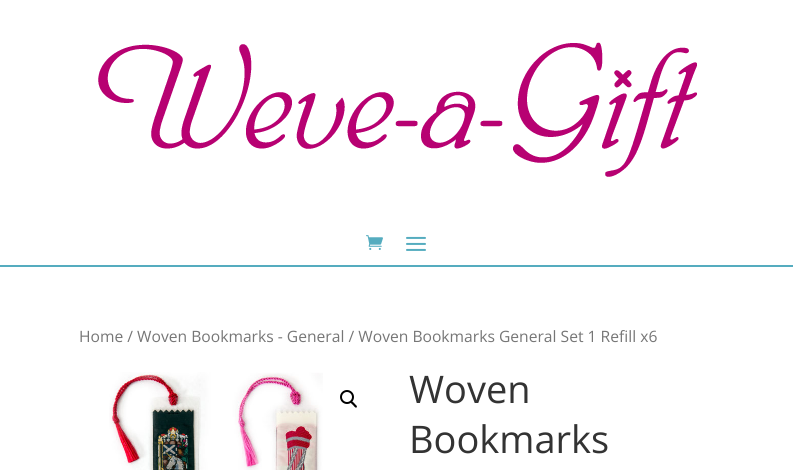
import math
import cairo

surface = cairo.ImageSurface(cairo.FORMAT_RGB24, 793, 470)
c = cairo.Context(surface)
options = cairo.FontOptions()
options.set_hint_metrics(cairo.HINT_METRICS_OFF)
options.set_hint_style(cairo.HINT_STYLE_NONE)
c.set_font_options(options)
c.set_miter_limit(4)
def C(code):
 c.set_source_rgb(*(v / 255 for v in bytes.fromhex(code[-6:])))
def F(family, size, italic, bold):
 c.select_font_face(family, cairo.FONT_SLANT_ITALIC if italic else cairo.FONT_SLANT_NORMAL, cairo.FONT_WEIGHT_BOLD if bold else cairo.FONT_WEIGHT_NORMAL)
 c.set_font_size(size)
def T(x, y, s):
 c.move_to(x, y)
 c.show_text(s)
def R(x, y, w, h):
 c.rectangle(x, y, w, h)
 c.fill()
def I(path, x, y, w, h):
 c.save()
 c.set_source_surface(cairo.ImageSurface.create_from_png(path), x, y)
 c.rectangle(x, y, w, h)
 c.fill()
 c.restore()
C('ffffff')
c.paint()
I('1.png',98,42,599,135)
C('55acbf')
R(0,265,793,2)
I('2.png',366,235,17,15)
I('3.png',406,236,20,15)
F('Open Sans',15.65,0,0)
C('767676')
T(79,342,'Home / Woven Bookmarks - General / Woven Bookmarks General Set 1 Refill x6')
I('4.png',109,372,214,98)
c.arc(347,397,6,0,2 * math.pi)
C('000000')
c.stroke()
c.new_path()
c.move_to(351,401.5)
c.curve_to(352,400.5,354,403,354.5,403.5)
c.curve_to(355,404.5,358,406,356.5,407.5)
c.curve_to(355.5,408.5,353.5,405.5,353,405)
c.curve_to(352.5,404.5,350,403,351,401.5)
c.close_path()
c.fill()
F('Open Sans',38,0,0)
C('333333')
T(409,403,'Woven')
T(409,453,'Bookmarks')
surface.write_to_png('o.png')
